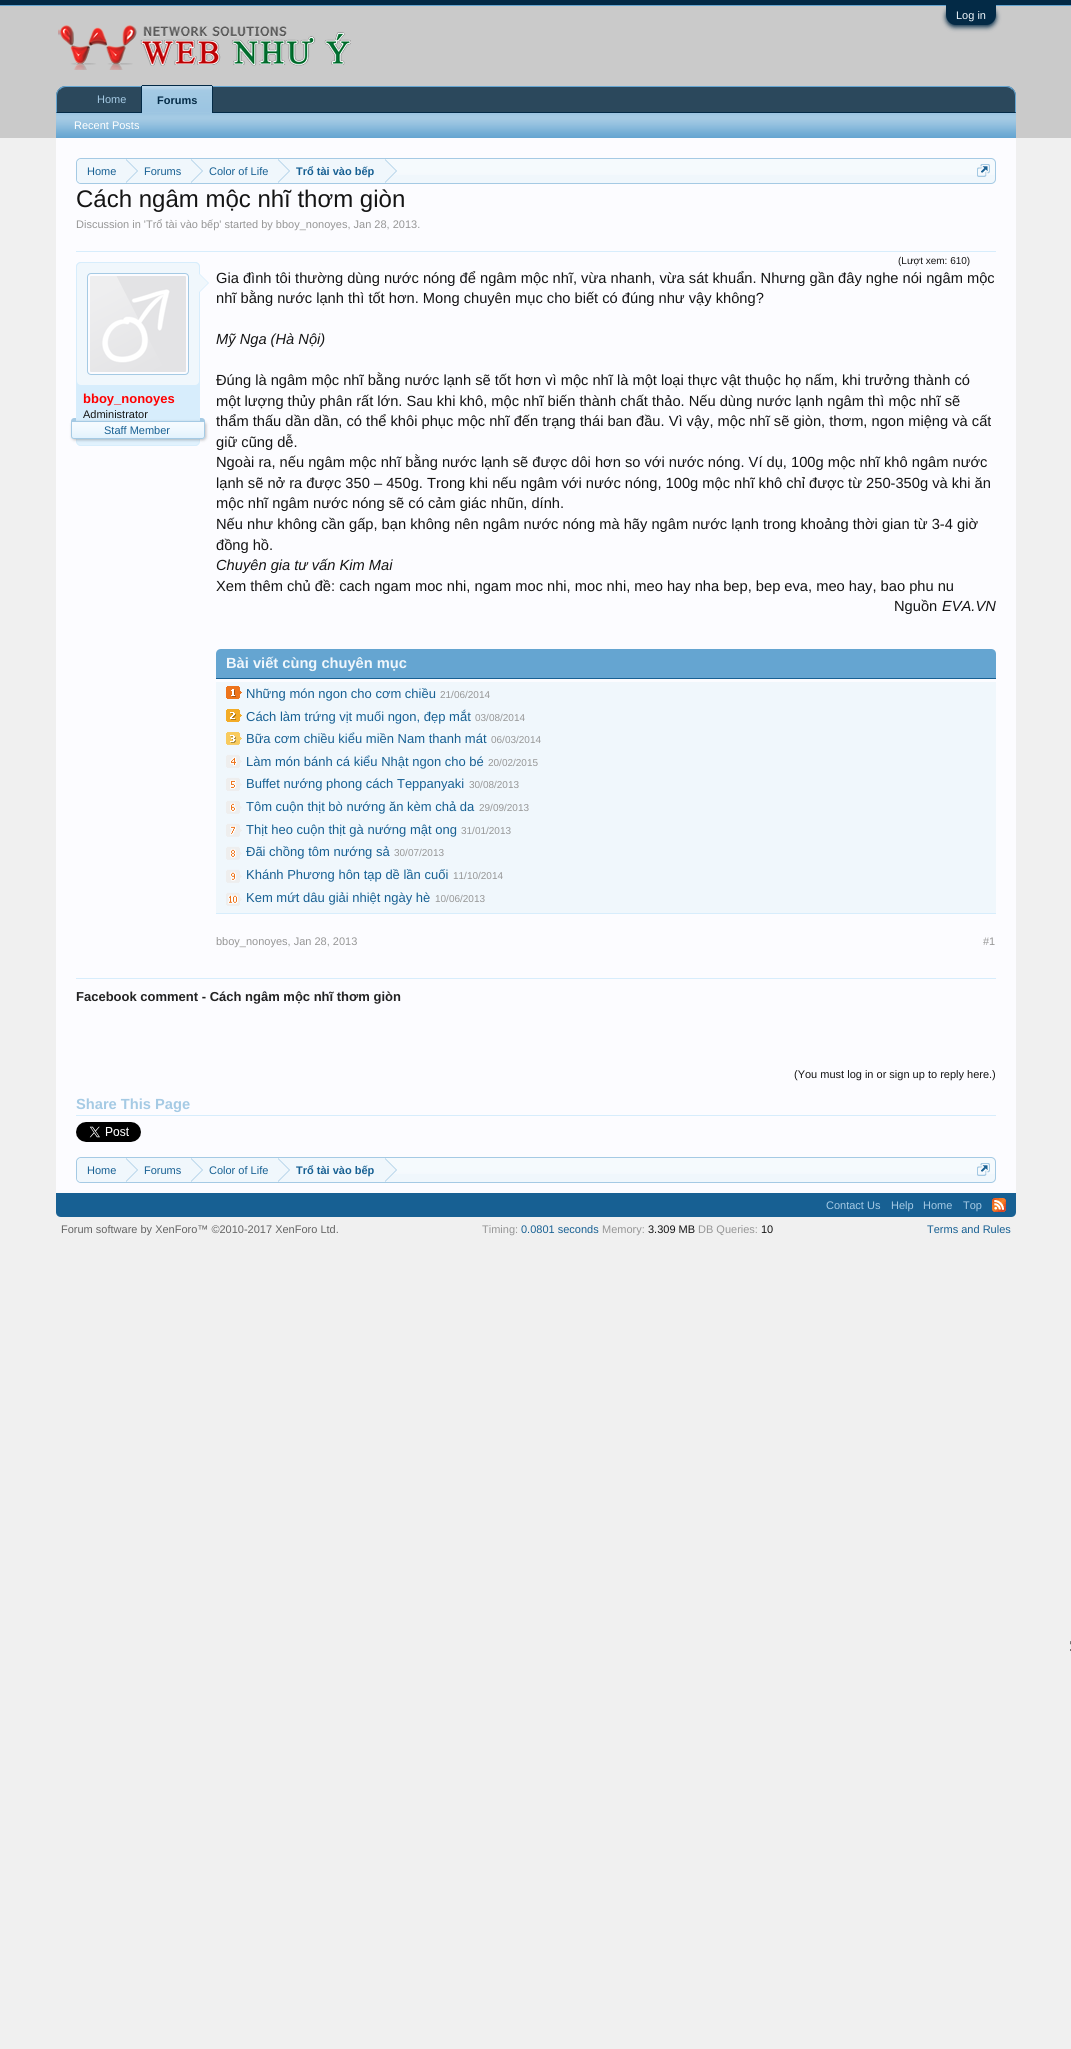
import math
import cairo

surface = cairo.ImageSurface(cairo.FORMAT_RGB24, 1071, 2049)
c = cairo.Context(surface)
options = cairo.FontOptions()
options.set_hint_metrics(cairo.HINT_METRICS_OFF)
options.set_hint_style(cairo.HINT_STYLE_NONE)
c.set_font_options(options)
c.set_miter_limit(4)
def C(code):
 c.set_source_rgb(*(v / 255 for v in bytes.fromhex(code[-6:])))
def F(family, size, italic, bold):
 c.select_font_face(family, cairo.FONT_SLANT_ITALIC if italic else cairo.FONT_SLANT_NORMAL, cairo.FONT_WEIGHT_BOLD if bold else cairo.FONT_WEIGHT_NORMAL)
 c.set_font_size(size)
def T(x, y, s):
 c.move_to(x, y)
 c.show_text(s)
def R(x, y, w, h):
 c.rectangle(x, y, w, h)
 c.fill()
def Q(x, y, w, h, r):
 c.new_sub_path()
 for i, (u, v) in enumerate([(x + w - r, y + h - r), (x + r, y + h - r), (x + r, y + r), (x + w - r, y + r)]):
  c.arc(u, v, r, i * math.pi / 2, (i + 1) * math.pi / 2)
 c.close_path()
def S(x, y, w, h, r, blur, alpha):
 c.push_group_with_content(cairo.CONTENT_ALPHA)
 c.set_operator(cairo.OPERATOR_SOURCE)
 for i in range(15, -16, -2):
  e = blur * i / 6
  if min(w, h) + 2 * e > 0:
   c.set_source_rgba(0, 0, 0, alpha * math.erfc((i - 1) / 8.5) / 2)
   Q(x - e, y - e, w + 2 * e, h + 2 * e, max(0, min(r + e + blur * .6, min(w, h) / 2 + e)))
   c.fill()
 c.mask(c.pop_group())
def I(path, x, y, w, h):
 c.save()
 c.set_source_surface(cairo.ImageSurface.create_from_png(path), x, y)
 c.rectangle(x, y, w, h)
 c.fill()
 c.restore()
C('f0f0f0')
c.paint()
C('032a46')
R(0,0,1071,5)
C('65a5d1')
R(0,5,1071,1)
C('cacaca')
R(0,6,1071,132)
C('032a46')
S(946,7,50,20,10,2.5,1)
C('032a46')
c.new_path()
c.move_to(946,5)
c.line_to(996,5)
c.line_to(996,15)
c.curve_to(996,20.5,991.5,25,986,25)
c.line_to(956,25)
c.curve_to(950.5,25,946,20.5,946,15)
c.close_path()
c.fill()
F('Liberation Sans',11,0,0)
C('f0f7fc')
T(956,19,'Log in')
I('1.png',58,25,293,45)
C('2b485c')
c.new_path()
c.move_to(66,86)
c.line_to(1006,86)
c.curve_to(1011.5,86,1016,90.5,1016,96)
c.line_to(1016,113)
c.line_to(56,113)
c.line_to(56,96)
c.curve_to(56,90.5,60.5,86,66,86)
c.close_path()
c.fill()
C('65a5d1')
c.new_path()
c.move_to(66,86)
c.curve_to(63,86,60,87,59,89)
c.line_to(60,90)
c.curve_to(61,88,64,87,66,87)
c.line_to(1006,87)
c.curve_to(1008,87,1011,88,1012,90)
c.line_to(1013,89)
c.curve_to(1012,87,1009,86,1006,86)
c.close_path()
c.fill()
c.new_path()
c.move_to(1016,113)
c.line_to(1016,96)
c.curve_to(1016,93,1015,90.5,1013,89)
c.line_to(1012.5,89.5)
c.curve_to(1014,91,1015,93.5,1015,96)
c.line_to(1015,112)
c.close_path()
c.fill()
C('032a46')
c.new_path()
c.move_to(1016,113)
c.line_to(1015,112)
c.line_to(57,112)
c.line_to(56,113)
c.close_path()
c.fill()
C('65a5d1')
c.new_path()
c.move_to(56,113)
c.line_to(57,112)
c.line_to(57,96)
c.curve_to(57,93.5,58,91,59.5,89.5)
c.line_to(59,89)
c.curve_to(57,90.5,56,93,56,96)
c.close_path()
c.fill()
C('a5cae4')
T(97,103,'Home')
C('65a5d1')
c.new_path()
c.move_to(143,85)
c.line_to(211,85)
c.curve_to(212,85,213,86,213,87)
c.line_to(213,113)
c.line_to(141,113)
c.line_to(141,87)
c.curve_to(141,86,142,85,143,85)
c.close_path()
c.fill()
I('2.png',142,86,70,27)
C('032a46')
R(142,85,70,1)
R(212,86,1,27)
R(141,86,1,27)
F('Liberation Sans',11,0,1)
T(157,104,'Forums')
C('65a5d1')
R(56,113,960,25)
I('3.png',56,113,960,24)
F('Liberation Sans',11,0,0)
C('ffffff')
T(74,129,'Recent Posts')
C('fcfcff')
R(56,138,960,1055)
C('f0f7fc')
Q(76,158,920,26,5)
c.fill()
I('4.png',76,159,920,16)
Q(76.5,158.5,919,25,4.5)
C('a5cae4')
c.set_line_width(1)
c.stroke()
c.save()
Q(77,159,918,24,4)
c.clip()
C('f0f7fc')
c.new_path()
c.move_to(82,159)
c.line_to(126,159)
c.line_to(126,184)
c.line_to(82,184)
c.curve_to(79,184,77,182,77,179)
c.line_to(77,164)
c.curve_to(77,161,79,159,82,159)
c.close_path()
c.fill()
c.restore()
C('176093')
T(87,175,'Home')
C('f0f7fc')
R(126,159,259,16)
C('a5cae4')
c.new_path()
c.move_to(126,183)
c.line_to(126,159)
c.line_to(138,171)
c.close_path()
c.fill()
C('f0f7fc')
c.new_path()
c.move_to(125,183)
c.line_to(125,159)
c.line_to(137,171)
c.close_path()
c.fill()
C('176093')
T(144,175,'Forums')
C('a5cae4')
c.new_path()
c.move_to(191,183)
c.line_to(191,159)
c.line_to(203,171)
c.close_path()
c.fill()
C('f0f7fc')
c.new_path()
c.move_to(190,183)
c.line_to(190,159)
c.line_to(202,171)
c.close_path()
c.fill()
C('176093')
T(209,175,'Color of Life')
C('a5cae4')
c.new_path()
c.move_to(278,183)
c.line_to(278,159)
c.line_to(290,171)
c.close_path()
c.fill()
C('f0f7fc')
c.new_path()
c.move_to(277,183)
c.line_to(277,159)
c.line_to(289,171)
c.close_path()
c.fill()
F('Liberation Sans',11,0,1)
C('176093')
T(296,175,'Trổ tài vào bếp')
C('a5cae4')
c.new_path()
c.move_to(385,183)
c.line_to(385,159)
c.line_to(397,171)
c.close_path()
c.fill()
C('f0f7fc')
c.new_path()
c.move_to(384,183)
c.line_to(384,159)
c.line_to(396,171)
c.close_path()
c.fill()
I('5.png',977,164,13,13)
F('Liberation Sans',24,0,0)
C('141414')
T(76,207,'Cách ngâm mộc nhĩ thơm giòn')
F('Liberation Sans',11,0,0)
C('969696')
T(76,228,'Discussion in \'Trổ tài vào bếp\' started by bboy_nonoyes, Jan 28, 2013.')
C('d7edfc')
R(76,251,920,1)
Q(76,262,124,184,5)
c.fill()
I('6.png',76,439,124,6)
Q(76.5,262.5,123,183,4.5)
c.stroke()
C('f0f7fc')
Q(77,263,122,122,4)
c.fill()
C('fcfcff')
Q(87.5,273.5,101,101,3.5)
c.fill_preserve()
C('a5cae4')
c.stroke()
I('7.png',90,276,96,96)
C('d7edfc')
c.new_path()
c.move_to(199,293)
c.line_to(199,273)
c.line_to(209,283)
c.close_path()
c.fill()
C('f0f7fc')
c.new_path()
c.move_to(198,293)
c.line_to(198,273)
c.line_to(208,283)
c.close_path()
c.fill()
F('Liberation Sans',13,0,1)
C('ff0000')
T(83,403,'bboy_nonoyes')
F('Liberation Sans',11,0,0)
C('141414')
T(83,418,'Administrator')
C('000000')
S(72,422,134,18,3,1.5,.25)
C('d7edfc')
c.new_path()
c.move_to(71,421)
c.line_to(205,421)
c.line_to(205,436)
c.curve_to(205,437.5,203.5,439,202,439)
c.line_to(74,439)
c.curve_to(72.5,439,71,437.5,71,436)
c.close_path()
c.fill()
I('8.png',71,422,134,17)
c.new_path()
c.move_to(71.5,421.5)
c.line_to(204.5,421.5)
c.line_to(204.5,436)
c.curve_to(204.5,437.5,203.5,438.5,202,438.5)
c.line_to(74,438.5)
c.curve_to(72.5,438.5,71.5,437.5,71.5,436)
c.close_path()
C('a5cae4')
c.stroke()
c.new_path()
c.move_to(74,418)
c.line_to(76,418)
c.line_to(76,422)
c.line_to(71,422)
c.line_to(71,421)
c.curve_to(71,419.5,72.5,418,74,418)
c.close_path()
c.fill()
c.new_path()
c.move_to(200,418)
c.line_to(202,418)
c.curve_to(203.5,418,205,419.5,205,421)
c.line_to(205,422)
c.line_to(200,422)
c.close_path()
c.fill()
C('176093')
T(104,434,'Staff Member')
F('Liberation Sans',10,0,0)
C('141414')
T(898,264,'(Lượt xem: 610)')
F('Liberation Sans',14.67,0,0)
T(216,283,'Gia đình tôi thường dùng nước nóng để ngâm mộc nhĩ, vừa nhanh, vừa sát khuẩn. Nhưng gần đây nghe nói ngâm mộc')
T(216,303,'nhĩ bằng nước lạnh thì tốt hơn. Mong chuyên mục cho biết có đúng như vậy không?')
F('Liberation Sans',14.67,1,0)
T(216,344,'Mỹ Nga (Hà Nội)')
F('Liberation Sans',14.67,0,0)
T(216,385,'Đúng là ngâm mộc nhĩ bằng nước lạnh sẽ tốt hơn vì mộc nhĩ là một loại thực vật thuộc họ nấm, khi trưởng thành có')
T(216,406,'một lượng thủy phân rất lớn. Sau khi khô, mộc nhĩ biến thành chất thảo. Nếu dùng nước lạnh ngâm thì mộc nhĩ sẽ')
T(216,426,'thẩm thấu dần dần, có thể khôi phục mộc nhĩ đến trạng thái ban đầu. Vì vậy, mộc nhĩ sẽ giòn, thơm, ngon miệng và cất')
T(216,447,'giữ cũng dễ.')
T(216,467,'Ngoài ra, nếu ngâm mộc nhĩ bằng nước lạnh sẽ được dôi hơn so với nước nóng. Ví dụ, 100g mộc nhĩ khô ngâm nước')
T(216,488,'lạnh sẽ nở ra được 350 – 450g. Trong khi nếu ngâm với nước nóng, 100g mộc nhĩ khô chỉ được từ 250-350g và khi ăn')
T(216,508,'mộc nhĩ ngâm nước nóng sẽ có cảm giác nhũn, dính.')
T(216,529,'Nếu như không cần gấp, bạn không nên ngâm nước nóng mà hãy ngâm nước lạnh trong khoảng thời gian từ 3-4 giờ')
T(216,550,'đồng hồ.')
F('Liberation Sans',14.67,1,0)
T(216,570,'Chuyên gia tư vấn Kim Mai')
F('Liberation Sans',14.67,0,0)
T(216,591,'Xem thêm chủ đề: cach ngam moc nhi, ngam moc nhi, moc nhi, meo hay nha bep, bep eva, meo hay, bao phu nu')
T(894,611,'Nguồn')
F('Liberation Sans',14.67,1,0)
T(942,611,'EVA.VN')
C('65a5d1')
c.new_path()
c.move_to(221,649)
c.line_to(991,649)
c.curve_to(994,649,996,651,996,654)
c.line_to(996,679)
c.line_to(216,679)
c.line_to(216,654)
c.curve_to(216,651,218,649,221,649)
c.close_path()
c.fill()
C('176093')
R(216,678,780,1)
F('Liberation Sans',14.67,0,1)
C('f0f7fc')
T(226,668,'Bài viết cùng chuyên mục')
R(216,682,780,231)
I('9.png',226,686,16,220)
C('d7edfc')
R(216,913,780,1)
F('Liberation Sans',13,0,0)
C('176093')
T(246,698,'Những món ngon cho cơm chiều')
F('Liberation Sans',10,0,0)
C('969696')
T(440,698,'21/06/2014')
F('Liberation Sans',13,0,0)
C('176093')
T(246,721,'Cách làm trứng vịt muối ngon, đẹp mắt')
F('Liberation Sans',10,0,0)
C('969696')
T(475,721,'03/08/2014')
F('Liberation Sans',13,0,0)
C('176093')
T(246,743,'Bữa cơm chiều kiểu miền Nam thanh mát')
F('Liberation Sans',10,0,0)
C('969696')
T(491,743,'06/03/2014')
F('Liberation Sans',13,0,0)
C('176093')
T(246,766,'Làm món bánh cá kiểu Nhật ngon cho bé')
F('Liberation Sans',10,0,0)
C('969696')
T(488,766,'20/02/2015')
F('Liberation Sans',13,0,0)
C('176093')
T(246,788,'Buffet nướng phong cách Teppanyaki')
F('Liberation Sans',10,0,0)
C('969696')
T(469,788,'30/08/2013')
F('Liberation Sans',13,0,0)
C('176093')
T(246,811,'Tôm cuộn thịt bò nướng ăn kèm chả da')
F('Liberation Sans',10,0,0)
C('969696')
T(479,811,'29/09/2013')
F('Liberation Sans',13,0,0)
C('176093')
T(246,834,'Thịt heo cuộn thịt gà nướng mật ong')
F('Liberation Sans',10,0,0)
C('969696')
T(461,834,'31/01/2013')
F('Liberation Sans',13,0,0)
C('176093')
T(246,856,'Đãi chồng tôm nướng sả')
F('Liberation Sans',10,0,0)
C('969696')
T(394,856,'30/07/2013')
F('Liberation Sans',13,0,0)
C('176093')
T(246,879,'Khánh Phương hôn tạp dề lần cuối')
F('Liberation Sans',10,0,0)
C('969696')
T(453,879,'11/10/2014')
F('Liberation Sans',13,0,0)
C('176093')
T(246,902,'Kem mứt dâu giải nhiệt ngày hè')
F('Liberation Sans',10,0,0)
C('969696')
T(435,902,'10/06/2013')
F('Liberation Sans',11,0,0)
T(216,945,'bboy_nonoyes, Jan 28, 2013')
T(983,945,'#1')
C('d7edfc')
R(76,978,920,1)
F('Liberation Sans',13,0,1)
C('222222')
T(76,1001,'Facebook comment - Cách ngâm mộc nhĩ thơm giòn')
F('Liberation Sans',11,0,0)
C('141414')
T(794,1078,'(You must log in or sign up to reply here.)')
C('d7edfc')
R(76,1115,920,1)
F('Liberation Sans',14.67,0,1)
C('a5cae4')
T(76,1109,'Share This Page')
I('10.png',76,1122,65,20)
C('f0f7fc')
Q(76,1157,920,26,5)
c.fill()
I('4.png',76,1158,920,16)
Q(76.5,1157.5,919,25,4.5)
C('a5cae4')
c.stroke()
c.save()
Q(77,1158,918,24,4)
c.clip()
C('f0f7fc')
c.new_path()
c.move_to(82,1158)
c.line_to(126,1158)
c.line_to(126,1183)
c.line_to(82,1183)
c.curve_to(79,1183,77,1181,77,1178)
c.line_to(77,1163)
c.curve_to(77,1160,79,1158,82,1158)
c.close_path()
c.fill()
c.restore()
F('Liberation Sans',11,0,0)
C('176093')
T(87,1174,'Home')
C('f0f7fc')
R(126,1158,259,16)
C('a5cae4')
c.new_path()
c.move_to(126,1182)
c.line_to(126,1158)
c.line_to(138,1170)
c.close_path()
c.fill()
C('f0f7fc')
c.new_path()
c.move_to(125,1182)
c.line_to(125,1158)
c.line_to(137,1170)
c.close_path()
c.fill()
C('176093')
T(144,1174,'Forums')
C('a5cae4')
c.new_path()
c.move_to(191,1182)
c.line_to(191,1158)
c.line_to(203,1170)
c.close_path()
c.fill()
C('f0f7fc')
c.new_path()
c.move_to(190,1182)
c.line_to(190,1158)
c.line_to(202,1170)
c.close_path()
c.fill()
C('176093')
T(209,1174,'Color of Life')
C('a5cae4')
c.new_path()
c.move_to(278,1182)
c.line_to(278,1158)
c.line_to(290,1170)
c.close_path()
c.fill()
C('f0f7fc')
c.new_path()
c.move_to(277,1182)
c.line_to(277,1158)
c.line_to(289,1170)
c.close_path()
c.fill()
F('Liberation Sans',11,0,1)
C('176093')
T(296,1174,'Trổ tài vào bếp')
C('a5cae4')
c.new_path()
c.move_to(385,1182)
c.line_to(385,1158)
c.line_to(397,1170)
c.close_path()
c.fill()
C('f0f7fc')
c.new_path()
c.move_to(384,1182)
c.line_to(384,1158)
c.line_to(396,1170)
c.close_path()
c.fill()
I('5.png',977,1163,13,13)
C('176093')
c.new_path()
c.move_to(56,1193)
c.line_to(1016,1193)
c.line_to(1016,1212)
c.curve_to(1016,1215,1014,1217,1011,1217)
c.line_to(61,1217)
c.curve_to(58,1217,56,1215,56,1212)
c.close_path()
c.fill()
F('Liberation Sans',11,0,0)
C('a5cae4')
T(826,1209,'Contact Us')
T(891,1209,'Help')
T(923,1209,'Home')
T(963,1209,'Top')
I('11.png',992,1198,14,14)
C('646464')
T(61,1233,'Forum software by XenForo™ ©2010-2017 XenForo Ltd.')
C('969696')
T(482,1233,'Timing:')
C('176093')
T(521,1233,'0.0801 seconds')
C('969696')
T(602,1233,'Memory:')
C('141414')
T(648,1233,'3.309 MB')
C('969696')
T(698,1233,'DB Queries:')
C('141414')
T(761,1233,'10')
C('176093')
T(927,1233,'Terms and Rules')
I('12.png',1070,1641,1,10)
surface.write_to_png('o.png')
